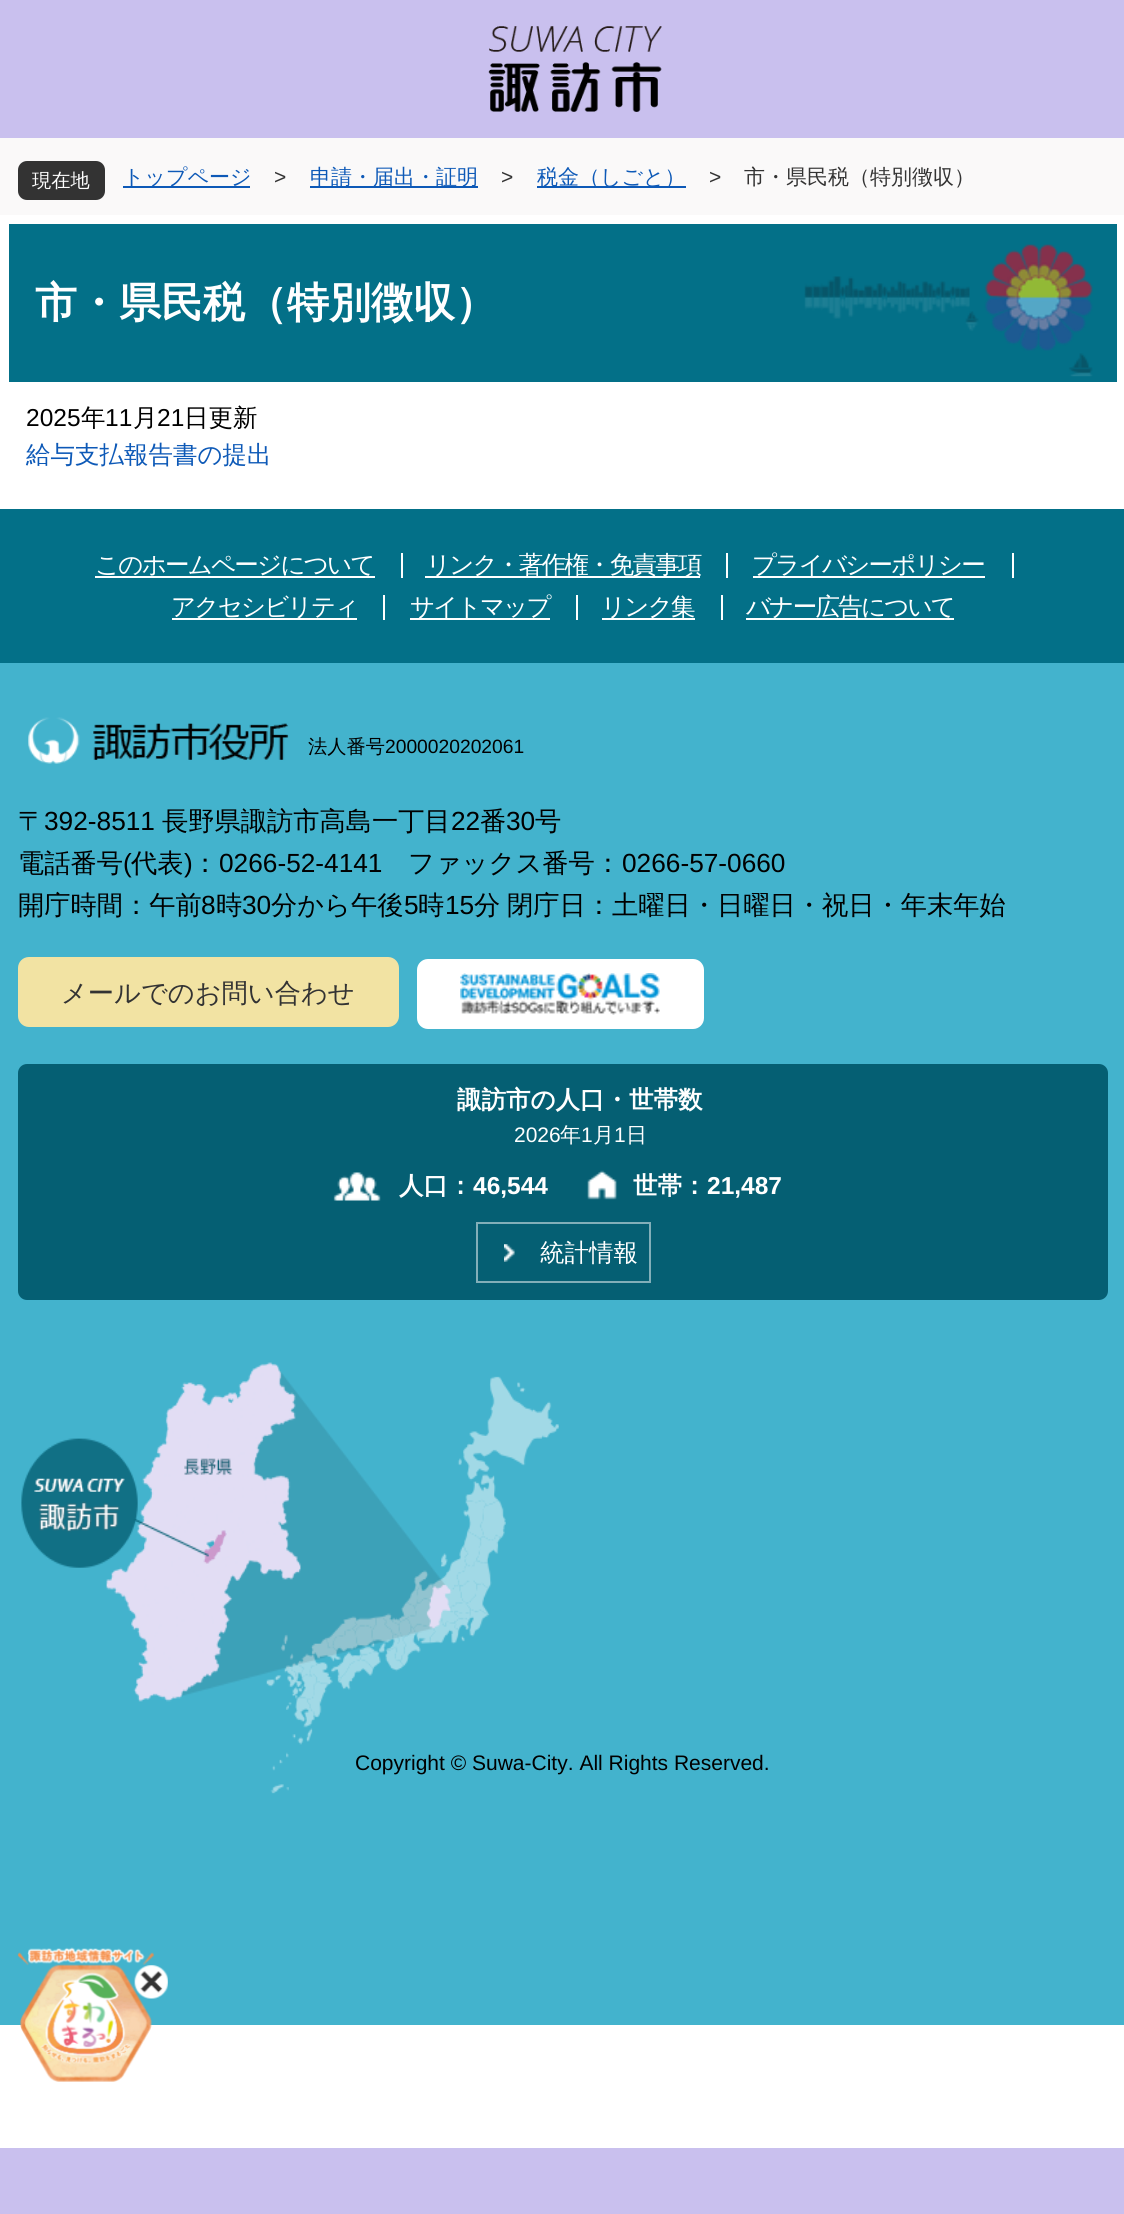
import math
import cairo

surface = cairo.ImageSurface(cairo.FORMAT_RGB24, 1124, 2214)
c = cairo.Context(surface)
options = cairo.FontOptions()
options.set_hint_metrics(cairo.HINT_METRICS_OFF)
options.set_hint_style(cairo.HINT_STYLE_NONE)
c.set_font_options(options)
c.set_miter_limit(4)
def C(code):
 c.set_source_rgb(*(v / 255 for v in bytes.fromhex(code[-6:])))
def F(family, size, italic, bold):
 c.select_font_face(family, cairo.FONT_SLANT_ITALIC if italic else cairo.FONT_SLANT_NORMAL, cairo.FONT_WEIGHT_BOLD if bold else cairo.FONT_WEIGHT_NORMAL)
 c.set_font_size(size)
def T(x, y, s):
 c.move_to(x, y)
 c.show_text(s)
def L(x, y, s, letter, word):
 c.move_to(x, y)
 for ch in s:
  c.show_text(ch)
  c.rel_move_to(letter + word * (ch == ' '), 0)
def R(x, y, w, h):
 c.rectangle(x, y, w, h)
 c.fill()
def Q(x, y, w, h, r):
 c.new_sub_path()
 for i, (u, v) in enumerate([(x + w - r, y + h - r), (x + r, y + h - r), (x + r, y + r), (x + w - r, y + r)]):
  c.arc(u, v, r, i * math.pi / 2, (i + 1) * math.pi / 2)
 c.close_path()
def I(path, x, y, w, h):
 c.save()
 c.set_source_surface(cairo.ImageSurface.create_from_png(path), x, y)
 c.rectangle(x, y, w, h)
 c.fill()
 c.restore()
C('ffffff')
c.paint()
C('c9c0ee')
R(0,0,1124,138)
I('1.png',488,26,174,86)
R(0,2148,1124,66)
C('faf9f9')
R(0,138,1124,77)
C('333333')
Q(18,161,87,39,9)
c.fill()
F('WenQuanYi Zen Hei Medium',19.25,0,0)
C('ffffff')
T(32,187,'現在地')
C('0d59b7')
R(123,186,127,2)
F('WenQuanYi Zen Hei Medium',21,0,0)
T(123,184,'トップページ')
F('Liberation Sans',21,0,0)
C('333333')
T(274,184,'>')
C('0d59b7')
R(310,186,168,2)
F('WenQuanYi Zen Hei Medium',21,0,0)
T(310,184,'申請・届出・証明')
F('Liberation Sans',21,0,0)
C('333333')
T(501,184,'>')
C('0d59b7')
R(537,186,149,2)
F('WenQuanYi Zen Hei Medium',21,0,0)
T(537,184,'税金（しごと）')
F('Liberation Sans',21,0,0)
C('333333')
T(709,184,'>')
F('WenQuanYi Zen Hei Medium',21,0,0)
T(744,184,'市・県民税（特別徴収）')
C('037088')
R(9,224,1108,158)
I('2.png',804,244,289,133)
F('WenQuanYi Zen Hei',42,0,1)
C('ffffff')
T(35,317,'市・県民税（特別徴収）')
F('Liberation Sans',24.5,0,0)
C('000000')
T(26,426,'2025')
F('WenQuanYi Zen Hei Medium',24.5,0,0)
T(81,426,'年')
F('Liberation Sans',24.5,0,0)
T(105,426,'11')
F('WenQuanYi Zen Hei Medium',24.5,0,0)
T(133,426,'月')
F('Liberation Sans',24.5,0,0)
T(157,426,'21')
F('WenQuanYi Zen Hei Medium',24.5,0,0)
T(184,426,'日更新')
C('0d59b7')
T(26,463,'給与支払報告書の提出')
C('43b3cd')
R(0,663,1124,1362)
I('3.png',21,1362,538,432)
C('037088')
R(0,509,1124,154)
C('ffffff')
R(401,553,2,25)
L(95,573,'このホームページについて',-1.75,0)
R(95,576,280,2)
R(726,553,2,25)
R(425,576,275,2)
L(426,573,'リンク・著作権・免責事項',-1.75,0)
R(1012,553,2,25)
R(753,576,232,2)
L(752,573,'プライバシーポリシー',-1.75,0)
R(383,595,2,25)
R(172,618,185,2)
L(171,615,'アクセシビリティ',-1.75,0)
R(576,595,2,25)
R(410,618,140,2)
L(410,615,'サイトマップ',-1.75,0)
R(721,595,2,25)
R(602,618,93,2)
L(601,615,'リンク集',-1.75,0)
R(746,618,208,2)
L(746,615,'バナー広告について',-1.75,0)
I('4.png',28,717,261,47)
F('WenQuanYi Zen Hei Medium',19.25,0,0)
C('000000')
T(308,753,'法人番号')
F('Liberation Sans',19.25,0,0)
T(385,753,'2000020202061')
F('WenQuanYi Zen Hei Medium',26.25,0,0)
T(18,830,'〒')
F('Liberation Sans',26.25,0,0)
T(44,830,'392-8511')
F('WenQuanYi Zen Hei Medium',26.25,0,0)
T(162,830,'長野県諏訪市高島一丁目')
F('Liberation Sans',26.25,0,0)
T(451,830,'22')
F('WenQuanYi Zen Hei Medium',26.25,0,0)
T(480,830,'番')
F('Liberation Sans',26.25,0,0)
T(506,830,'30')
F('WenQuanYi Zen Hei Medium',26.25,0,0)
T(535,830,'号')
T(18,872,'電話番号')
F('Liberation Sans',26.25,0,0)
T(123,872,'(')
F('WenQuanYi Zen Hei Medium',26.25,0,0)
T(131,872,'代表')
F('Liberation Sans',26.25,0,0)
T(184,872,')')
F('WenQuanYi Zen Hei Medium',26.25,0,0)
T(192,872,'：')
F('Liberation Sans',26.25,0,0)
T(219,872,'0266-52-4141')
F('WenQuanYi Zen Hei Medium',26.25,0,0)
T(408,872,'ファックス番号：')
F('Liberation Sans',26.25,0,0)
T(622,872,'0266-57-0660')
F('WenQuanYi Zen Hei Medium',26.25,0,0)
T(18,914,'開庁時間：午前')
F('Liberation Sans',26.25,0,0)
T(201,914,'8')
F('WenQuanYi Zen Hei Medium',26.25,0,0)
T(216,914,'時')
F('Liberation Sans',26.25,0,0)
T(242,914,'30')
F('WenQuanYi Zen Hei Medium',26.25,0,0)
T(271,914,'分から午後')
F('Liberation Sans',26.25,0,0)
T(404,914,'5')
F('WenQuanYi Zen Hei Medium',26.25,0,0)
T(418,914,'時')
F('Liberation Sans',26.25,0,0)
T(445,914,'15')
F('WenQuanYi Zen Hei Medium',26.25,0,0)
L(474,914,'分 閉庁日：土曜日・日曜日・祝日・年末年始',0,-1)
C('f2e3a3')
Q(18,957,381,70,11)
c.fill()
C('333333')
T(61,1002,'メールでのお問い合わせ')
C('ffffff')
Q(417,959,287,70,11)
c.fill()
I('5.png',460,973,200,42)
C('055f73')
Q(18,1064,1090,236,9)
c.fill()
F('WenQuanYi Zen Hei',24.5,0,1)
C('ffffff')
T(457,1108,'諏訪市の人口・世帯数')
F('Liberation Sans',21,0,0)
T(514,1142,'2026')
F('WenQuanYi Zen Hei Medium',21,0,0)
T(560,1142,'年')
F('Liberation Sans',21,0,0)
T(581,1142,'1')
F('WenQuanYi Zen Hei Medium',21,0,0)
T(593,1142,'月')
F('Liberation Sans',21,0,0)
T(614,1142,'1')
F('WenQuanYi Zen Hei Medium',21,0,0)
T(626,1142,'日')
I('6.png',333,1172,48,29)
F('WenQuanYi Zen Hei',24.5,0,1)
T(399,1194,'人口：')
F('Liberation Sans',24.5,0,1)
T(473,1194,'46,544')
I('7.png',587,1170,30,30)
F('WenQuanYi Zen Hei',24.5,0,1)
T(633,1194,'世帯：')
F('Liberation Sans',24.5,0,1)
T(707,1194,'21,487')
I('8.png',504,1244,11,18)
c.rectangle(477,1223,173,59)
C('82afb9')
c.stroke()
F('WenQuanYi Zen Hei Medium',24.5,0,0)
C('ffffff')
T(540,1261,'統計情報')
F('Liberation Sans',21,0,0)
C('000000')
T(355,1770,'Copyright © Suwa-City. All Rights Reserved.')
I('9.png',17,1947,137,135)
I('10.png',134,1965,34,34)
surface.write_to_png('o.png')
